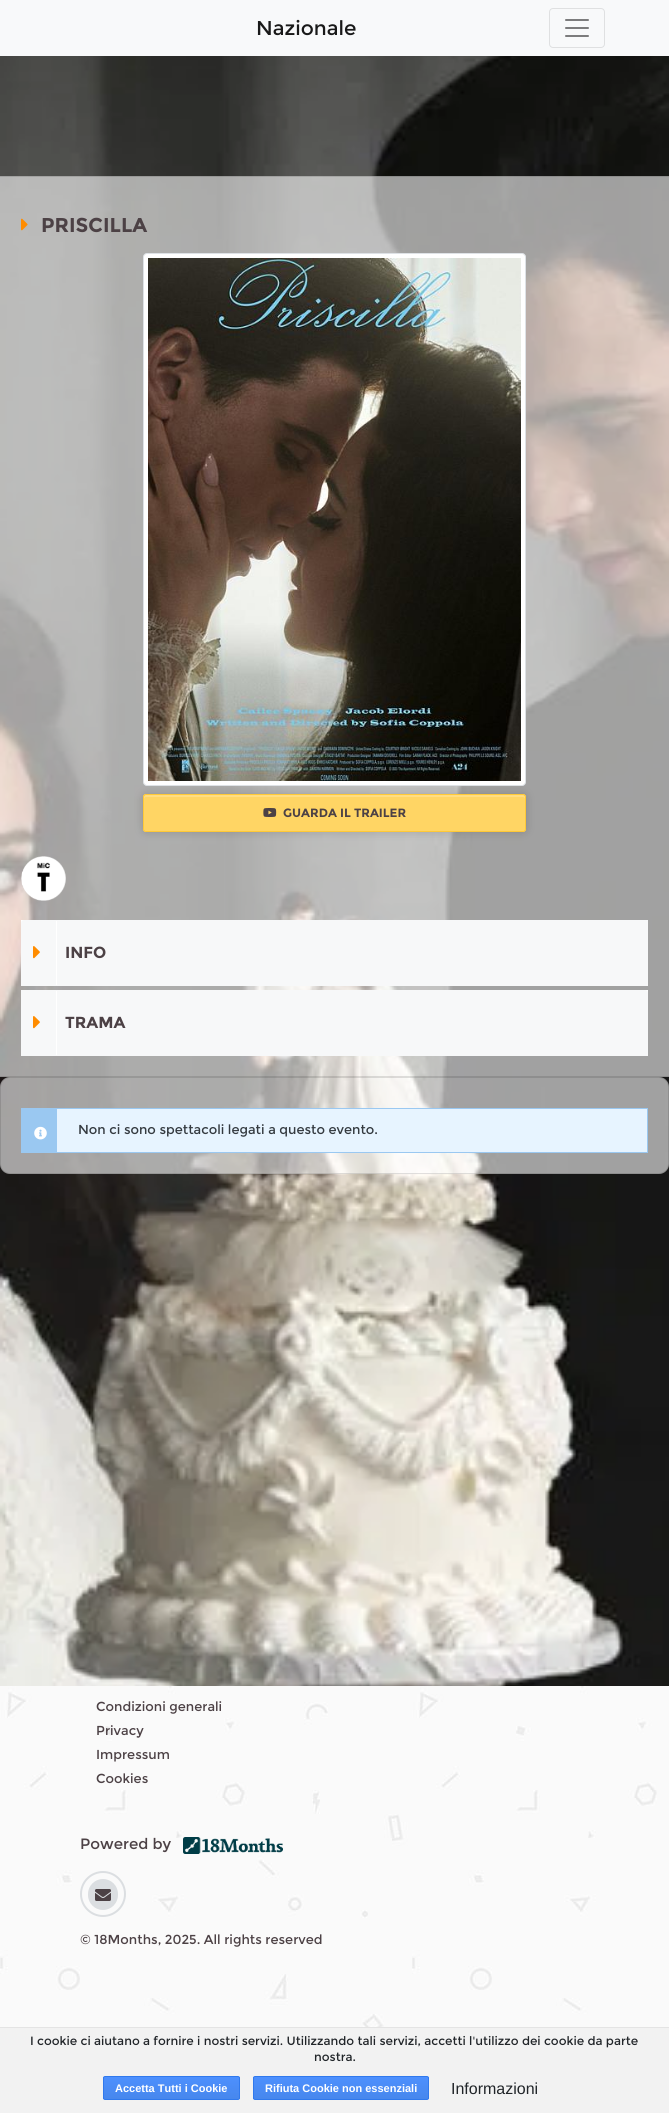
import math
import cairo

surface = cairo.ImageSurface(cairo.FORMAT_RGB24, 669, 2113)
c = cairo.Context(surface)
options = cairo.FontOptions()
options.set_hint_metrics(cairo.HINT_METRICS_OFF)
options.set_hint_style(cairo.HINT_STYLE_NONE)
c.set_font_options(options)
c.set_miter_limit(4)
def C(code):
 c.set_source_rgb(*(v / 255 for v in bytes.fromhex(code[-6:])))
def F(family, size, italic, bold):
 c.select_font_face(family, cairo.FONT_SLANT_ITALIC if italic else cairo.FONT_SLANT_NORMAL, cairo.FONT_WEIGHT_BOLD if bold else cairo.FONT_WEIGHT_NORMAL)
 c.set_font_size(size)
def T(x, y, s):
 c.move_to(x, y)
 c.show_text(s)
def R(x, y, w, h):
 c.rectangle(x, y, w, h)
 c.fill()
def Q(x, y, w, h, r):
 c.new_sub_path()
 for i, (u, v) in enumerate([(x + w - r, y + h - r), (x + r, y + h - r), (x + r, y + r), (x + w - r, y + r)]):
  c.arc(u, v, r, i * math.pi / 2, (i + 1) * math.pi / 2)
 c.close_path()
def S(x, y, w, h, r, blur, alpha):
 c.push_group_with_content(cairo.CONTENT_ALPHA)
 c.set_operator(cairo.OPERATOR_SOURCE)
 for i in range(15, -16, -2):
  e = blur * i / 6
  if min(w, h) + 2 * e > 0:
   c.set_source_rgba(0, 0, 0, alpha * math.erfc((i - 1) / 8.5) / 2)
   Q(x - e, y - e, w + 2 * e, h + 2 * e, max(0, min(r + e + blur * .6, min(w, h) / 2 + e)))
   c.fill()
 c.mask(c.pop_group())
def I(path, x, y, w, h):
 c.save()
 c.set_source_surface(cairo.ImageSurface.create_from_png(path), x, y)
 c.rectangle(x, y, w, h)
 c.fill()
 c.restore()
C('ffffff')
c.paint()
C('f8f9fa')
R(0,0,669,56)
F('Montserrat',20,0,0)
C('191919')
T(256,35,'Nazionale')
Q(549.5,8.5,55,39,3.5)
C('dfe0e1')
c.set_line_width(1)
c.stroke()
I('1.png',565,19,24,18)
I('2.png',0,56,669,1630)
c.set_source_rgba(1,1,1,0.6)
R(0,176,669,901)
c.rectangle(-.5,176.5,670,900)
c.set_source_rgba(0,0,0,0.12)
c.stroke()
I('3.png',21,218,7,13)
F('Montserrat',20,0,1)
C('4c4145')
T(41,232,'PRISCILLA')
C('000000')
S(143,794,383,38,3,5,.16)
C('ffffff')
Q(143.5,253.5,382,532,3.5)
c.fill_preserve()
C('dee2e6')
c.stroke()
I('4.png',148,258,373,523)
C('ffd564')
Q(143,794,383,38,3)
c.fill()
C('ffdd83')
c.new_path()
c.move_to(146,797)
c.line_to(523,797)
c.curve_to(524,797,525,798,525,799)
c.line_to(525,797)
c.curve_to(525,796,524,795,523,795)
c.line_to(146,795)
c.curve_to(145,795,144,796,144,797)
c.line_to(144,799)
c.curve_to(144,798,145,797,146,797)
c.close_path()
c.fill()
Q(143.5,794.5,382,37,2.5)
C('ffc936')
c.stroke()
I('5.png',263,808,14,9)
F('Montserrat',12,0,1)
C('4c4145')
T(283,817,'GUARDA IL TRAILER')
I('6.png',21,856,45,45)
C('ffffff')
R(21,920,3,3)
C('f7f8f9')
c.new_path()
c.move_to(24,920)
c.line_to(648,920)
c.line_to(648,986)
c.line_to(21,986)
c.line_to(21,923)
c.curve_to(21,921.5,22.5,920,24,920)
c.close_path()
c.fill()
C('ffffff')
R(56,921,1,64)
I('7.png',33,946,7,13)
F('Montserrat',16,0,1)
C('4c4145')
T(65,958,'INFO')
C('ffffff')
R(645,990,3,3)
C('f7f8f9')
c.new_path()
c.move_to(21,990)
c.line_to(645,990)
c.curve_to(646.5,990,648,991.5,648,993)
c.line_to(648,1056)
c.line_to(21,1056)
c.close_path()
c.fill()
C('ffffff')
R(56,991,1,64)
I('7.png',33,1016,7,13)
C('4c4145')
T(65,1028,'TRAMA')
c.set_source_rgba(1,1,1,0.6)
Q(0,1077,669,97,10)
c.fill()
Q(.5,1077.5,668,96,9.5)
c.set_source_rgba(0,0,0,0.12)
c.stroke()
C('e7f4ff')
R(57,1109,590,43)
c.rectangle(21.5,1108.5,626,44)
C('9ac8f1')
c.stroke()
R(22,1109,35,43)
I('8.png',34,1126,13,14)
F('Montserrat',13,0,0)
C('343a40')
T(78,1134,'Non ci sono spettacoli legati a questo evento.')
C('fafafa')
R(657,1686,12,341)
I('9.png',0,1686,657,341)
C('4c4145')
T(96,1711,'Condizioni generali')
T(96,1735,'Privacy')
T(96,1759,'Impressum')
T(96,1783,'Cookies')
F('Montserrat',15,0,0)
T(80,1849,'Powered by')
I('10.png',183,1837,100,17)
C('dbdee1')
Q(88,1879,30,31,15)
c.fill()
I('11.png',95,1889,16,12)
c.arc(103,1894,22,0,2 * math.pi)
c.set_line_width(2)
c.stroke()
F('Montserrat',13,0,0)
C('4c4145')
T(80,1944,'© 18Months, 2025. All rights reserved')
C('f2f2f2')
R(0,2028,669,85)
C('e4e4e4')
R(0,2027,669,1)
F('Montserrat',12,0,0)
C('212529')
T(30,2045,'I cookie ci aiutano a fornire i nostri servizi. Utilizzando tali servizi, accetti l\'utilizzo dei cookie da parte')
T(314,2061,'nostra.')
c.save()
Q(103,2076,137,24,2)
c.clip()
gradient = cairo.LinearGradient(172,2077,172,2099)
gradient.add_color_stop_rgba(0,0.302,0.565,0.996,1)
gradient.add_color_stop_rgba(1,0.278,0.529,0.929,1)
c.set_source(gradient)
R(103,2077,137,22)
c.restore()
Q(103.5,2076.5,136,23,1.5)
C('3079ed')
c.set_line_width(1)
c.stroke()
F('Liberation Sans',11,0,1)
C('ffffff')
T(115,2092,'Accetta Tutti i Cookie')
c.save()
Q(253,2076,176,24,2)
c.clip()
gradient = cairo.LinearGradient(341,2077,341,2099)
gradient.add_color_stop_rgba(0,0.302,0.565,0.996,1)
gradient.add_color_stop_rgba(1,0.278,0.529,0.929,1)
c.set_source(gradient)
R(253,2077,176,22)
c.restore()
Q(253.5,2076.5,175,23,1.5)
C('3079ed')
c.stroke()
C('ffffff')
T(265,2092,'Rifiuta Cookie non essenziali')
F('Liberation Sans',16,0,0)
C('212529')
T(451,2094,'Informazioni')
surface.write_to_png('o.png')
